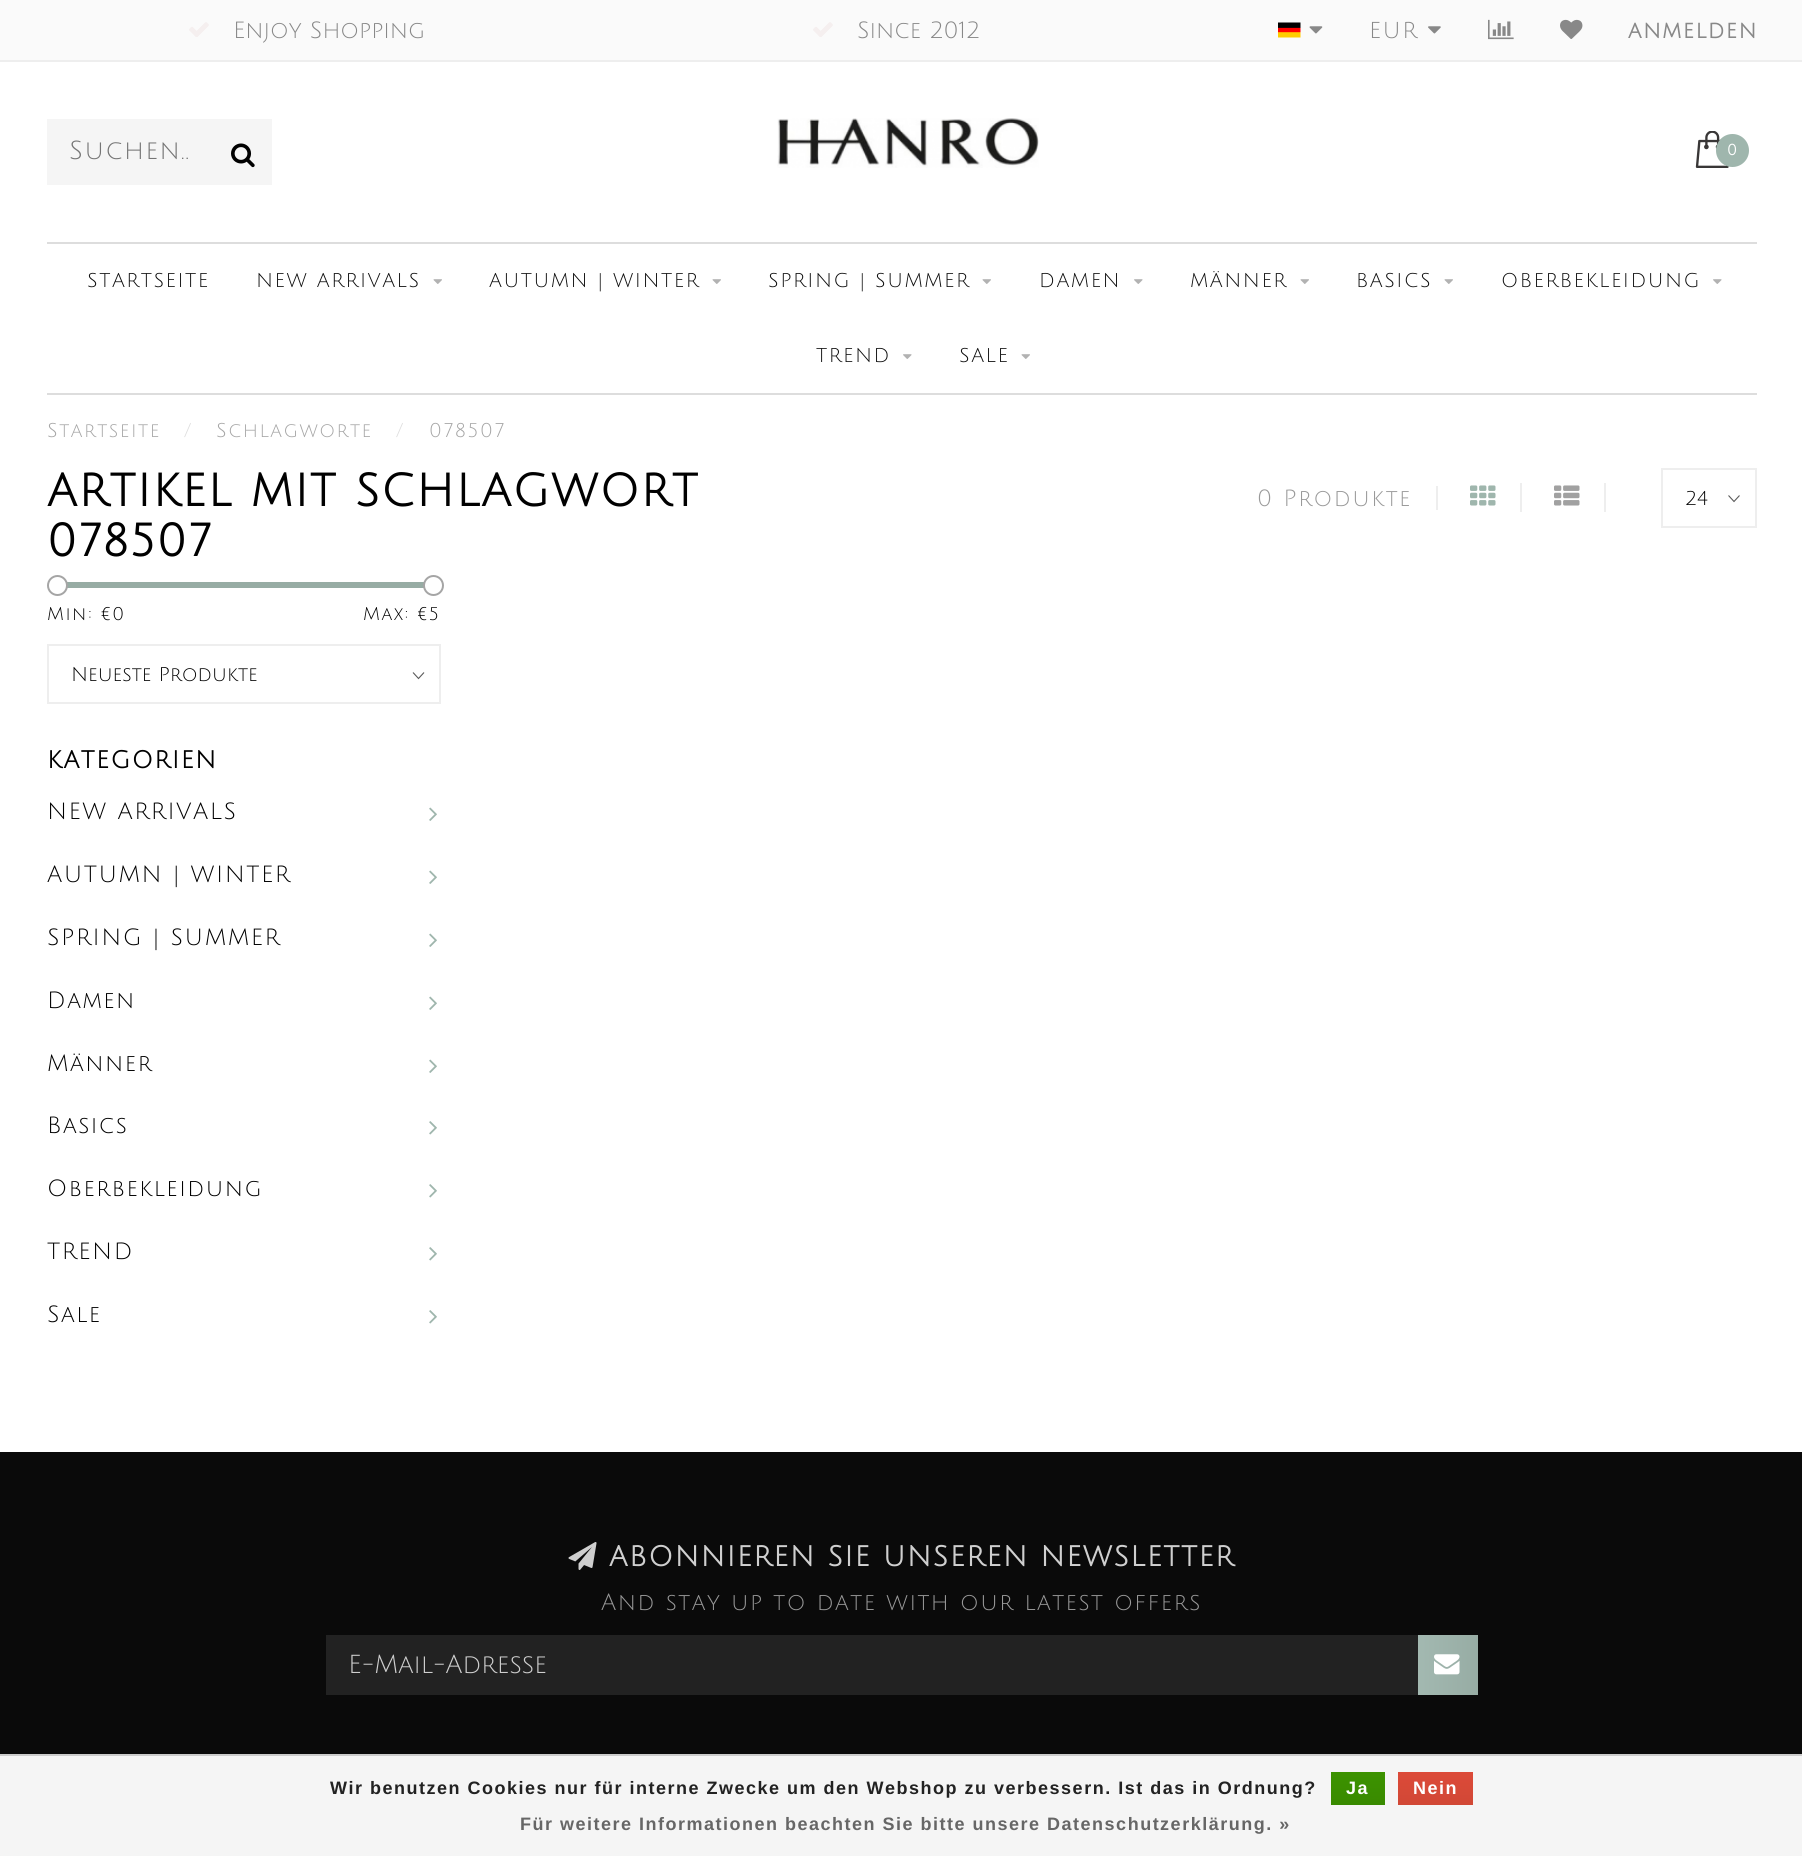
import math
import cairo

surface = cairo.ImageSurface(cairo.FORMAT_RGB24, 1802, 1856)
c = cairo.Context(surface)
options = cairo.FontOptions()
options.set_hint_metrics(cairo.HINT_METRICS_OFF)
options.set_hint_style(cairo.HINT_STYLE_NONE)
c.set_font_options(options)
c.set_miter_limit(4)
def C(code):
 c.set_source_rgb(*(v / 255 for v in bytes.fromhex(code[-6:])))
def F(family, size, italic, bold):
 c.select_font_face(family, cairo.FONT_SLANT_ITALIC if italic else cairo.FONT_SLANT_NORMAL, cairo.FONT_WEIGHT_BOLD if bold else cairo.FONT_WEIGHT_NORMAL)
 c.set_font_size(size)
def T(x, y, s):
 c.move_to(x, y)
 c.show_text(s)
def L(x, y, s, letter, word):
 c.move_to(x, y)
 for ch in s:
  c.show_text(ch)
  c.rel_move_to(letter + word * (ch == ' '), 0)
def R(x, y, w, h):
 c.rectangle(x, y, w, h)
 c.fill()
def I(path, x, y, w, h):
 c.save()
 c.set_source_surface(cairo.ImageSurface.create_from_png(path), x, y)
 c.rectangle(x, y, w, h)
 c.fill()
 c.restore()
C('ffffff')
c.paint()
C('fafafa')
R(0,0,1802,60)
C('eeeeee')
R(0,60,1802,2)
I('1.png',189,22,20,15)
F('Julius Sans One',22.95,0,0)
C('888888')
T(233,38,'Enjoy Shopping')
I('1.png',813,22,20,15)
T(857,38,'Since 2012')
I('2.png',1278,22,23,16)
I('3.png',1309,26,14,8)
F('Julius Sans One',22.5,0,0)
L(1369,38,'EUR',1.5,0)
I('4.png',1428,26,13,8)
I('5.png',1488,19,26,21)
I('6.png',1560,19,23,20)
F('Julius Sans One',22.5,0,1)
L(1628,38,'anmelden',1.5,0)
C('f5f5f5')
R(47,119,225,66)
F('Julius Sans One',25.5,0,0)
C('757575')
L(69,159,'Suchen..',1.5,0)
I('7.png',231,143,24,25)
I('8.png',777,118,262,50)
I('9.png',1695,131,34,37)
C('9fb6ad')
c.arc(1732.5,150.5,16.5,0,2 * math.pi)
c.fill()
F('Julius Sans One',15,0,1)
C('ffffff')
L(1727,155,'0',1.5,0)
C('dddddd')
R(47,242,1710,2)
R(47,393,1710,2)
F('Julius Sans One',19.5,0,0)
C('0d0d0d')
L(87,287,'STARTSEITE',1.5,0)
L(256,287,'NEW ARRIVALS',1.5,0)
I('10.png',433,279,9,5)
L(489,287,'AUTUMN | WINTER',1.5,0)
I('10.png',712,279,9,5)
L(768,287,'SPRING | SUMMER',1.5,0)
I('10.png',982,279,9,5)
L(1039,287,'DAMEN',1.5,0)
I('11.png',1134,279,9,5)
L(1190,287,'MÄNNER',1.5,0)
I('10.png',1300,279,9,5)
L(1356,287,'BASICS',1.5,0)
I('10.png',1444,279,9,5)
L(1501,287,'OBERBEKLEIDUNG',1.5,0)
I('11.png',1713,279,9,5)
L(816,362,'TREND',1.5,0)
I('11.png',903,354,9,5)
L(959,362,'SALE',1.5,0)
I('10.png',1021,354,9,5)
C('a5a5a5')
L(47,437,'Startseite',1.5,0)
C('dddddd')
L(184,437,'/',1.5,0)
C('a5a5a5')
L(216,437,'Schlagworte',1.5,0)
C('dddddd')
L(396,437,'/',1.5,0)
C('a5a5a5')
L(429,437,'078507',1.5,0)
F('Julius Sans One',45,0,1)
C('000000')
L(47,506,'ARTIKEL MIT SCHLAGWORT',1.5,0)
L(47,556,'078507',1.5,0)
F('Julius Sans One',22.95,0,0)
C('999999')
L(1257,506,'0 Produkte',1.5,0)
C('eeeeee')
R(1436,486,2,24)
R(1520,483,2,29)
I('12.png',1470,485,26,21)
R(1604,483,2,29)
I('13.png',1554,485,26,21)
c.new_path()
c.move_to(1739.5,495.5)
c.line_to(1734,501.5)
c.line_to(1728.5,495.5)
C('595959')
c.set_line_width(1.1)
c.stroke()
c.rectangle(1662,469,94,58)
C('eeeeee')
c.set_line_width(2)
c.stroke()
F('Julius Sans One',19.5,0,0)
C('000000')
T(1685,505,'24')
C('97aca4')
R(62,582,362,6)
C('ffffff')
c.new_path()
c.arc(57.5,585.5,9.5,0,2 * math.pi)
c.fill_preserve()
C('a5a5a5')
c.stroke()
C('ffffff')
c.arc(433.5,585.5,9.5,0,2 * math.pi)
c.fill_preserve()
C('a5a5a5')
c.stroke()
F('Julius Sans One',18,0,0)
C('000000')
L(47,620,'Min: €0',1.5,0)
L(363,620,'Max: €5',1.5,0)
c.new_path()
c.move_to(424,672.5)
c.line_to(418.5,678.5)
c.line_to(413,672.5)
C('595959')
c.set_line_width(1.1)
c.stroke()
c.rectangle(48,645,392,58)
C('eeeeee')
c.set_line_width(2)
c.stroke()
F('Julius Sans One',19.5,0,0)
C('000000')
T(71,681,'Neueste Produkte')
F('Julius Sans One',24,0,1)
L(47,768,'KATEGORIEN',1.5,0)
F('Julius Sans One',22.95,0,0)
L(47,819,'NEW ARRIVALS',1.5,0)
I('14.png',429,807,8,14)
L(47,882,'AUTUMN | WINTER',1.5,0)
I('14.png',429,870,8,14)
L(47,945,'SPRING | SUMMER',1.5,0)
I('14.png',429,933,8,14)
L(47,1008,'Damen',1.5,0)
I('14.png',429,996,8,14)
L(47,1071,'Männer',1.5,0)
I('14.png',429,1059,8,14)
L(47,1133,'Basics',1.5,0)
I('15.png',429,1121,8,14)
L(47,1196,'Oberbekleidung',1.5,0)
I('15.png',429,1184,8,14)
L(47,1259,'TREND',1.5,0)
I('15.png',429,1247,8,14)
L(47,1322,'Sale',1.5,0)
I('15.png',429,1310,8,14)
C('0a0a0a')
R(0,1452,1802,302)
I('16.png',568,1542,29,28)
F('Julius Sans One',28.05,0,1)
C('cfcfcf')
L(609,1566,'ABONNIEREN SIE UNSEREN NEWSLETTER',1.5,0)
F('Julius Sans One',22.95,0,0)
C('999999')
L(601,1610,'And stay up to date with our latest offers',1.5,0)
C('222222')
R(326,1635,1092,60)
F('Julius Sans One',25.5,0,0)
C('cfcfcf')
T(348,1673,'E-Mail-Adresse')
gradient = cairo.LinearGradient(1418,1665,1478,1665)
gradient.add_color_stop_rgba(0,0.639,0.725,0.694,1)
gradient.add_color_stop_rgba(1,0.592,0.675,0.643,1)
c.set_source(gradient)
R(1418,1635,60,60)
I('17.png',1434,1654,26,21)
C('f5f5f5')
R(0,1756,1802,100)
C('cccccc')
R(0,1754,1802,2)
F('Liberation Sans',18,0,1)
C('222222')
L(330,1794,'Wir benutzen Cookies nur für interne Zwecke um den Webshop zu verbessern. Ist das in Ordnung?',1.5,0)
gradient = cairo.LinearGradient(1358,1772,1358,1805)
gradient.add_color_stop_rgba(0,0.235,0.576,0,1)
gradient.add_color_stop_rgba(1,0.224,0.541,0,1)
c.set_source(gradient)
R(1331,1772,54,33)
C('ffffff')
L(1346,1794,'Ja',1.5,0)
gradient = cairo.LinearGradient(1436,1772,1436,1805)
gradient.add_color_stop_rgba(0,0.863,0.29,0.22,1)
gradient.add_color_stop_rgba(1,0.82,0.282,0.212,1)
c.set_source(gradient)
R(1398,1772,75,33)
C('ffffff')
L(1413,1794,'Nein',1.5,0)
C('666666')
L(520,1830,'Für weitere Informationen beachten Sie bitte unsere Datenschutzerklärung. »',1.5,0)
surface.write_to_png('o.png')
